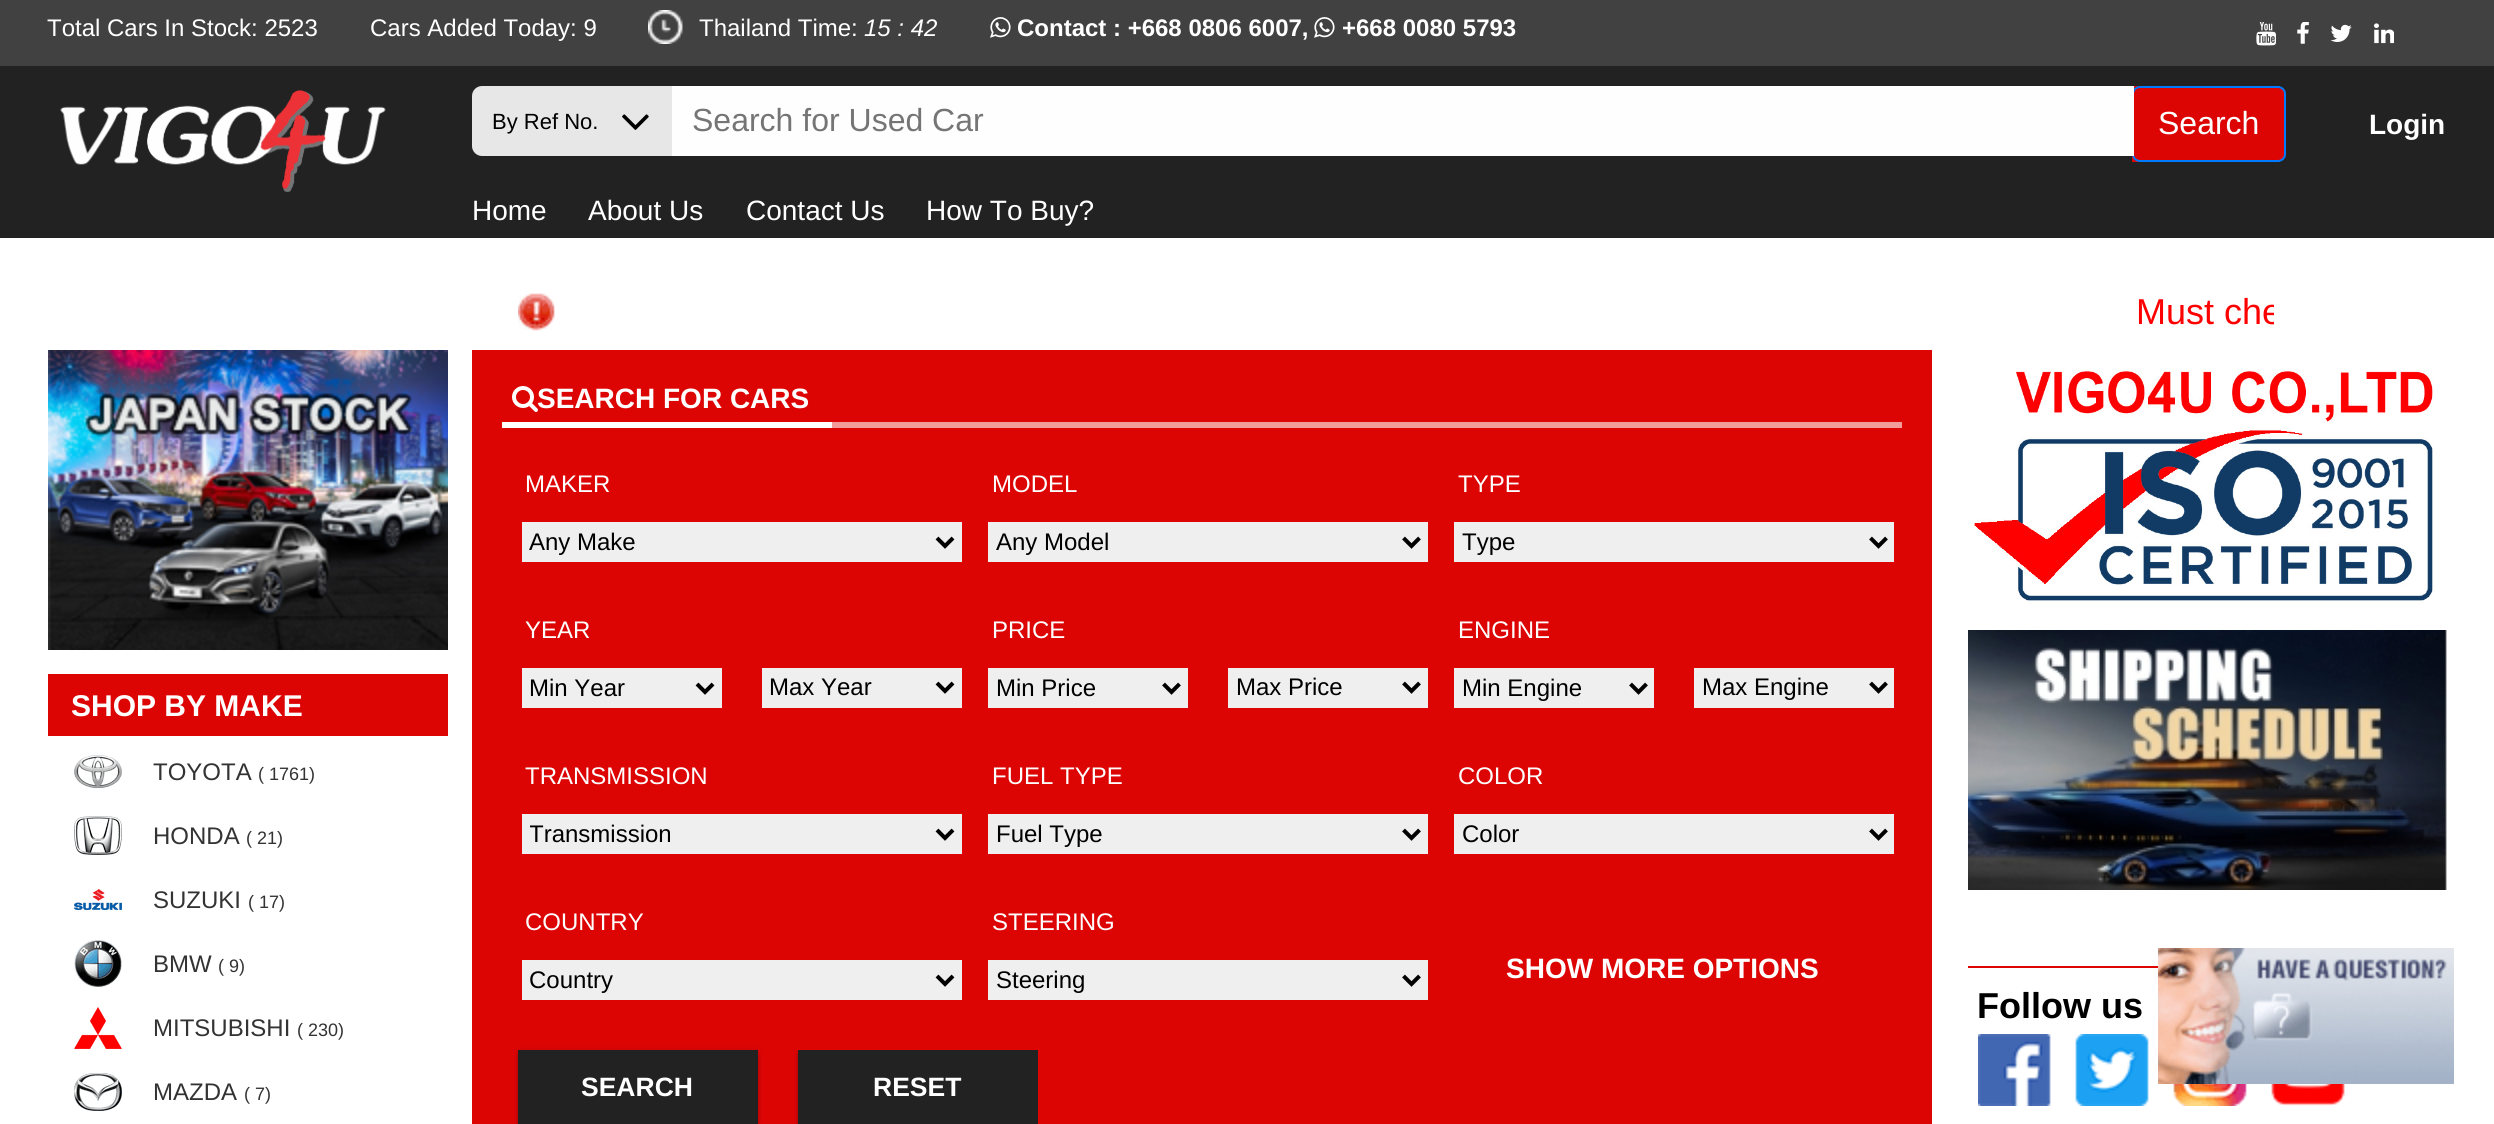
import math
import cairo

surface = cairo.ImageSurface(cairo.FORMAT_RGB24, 2494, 1124)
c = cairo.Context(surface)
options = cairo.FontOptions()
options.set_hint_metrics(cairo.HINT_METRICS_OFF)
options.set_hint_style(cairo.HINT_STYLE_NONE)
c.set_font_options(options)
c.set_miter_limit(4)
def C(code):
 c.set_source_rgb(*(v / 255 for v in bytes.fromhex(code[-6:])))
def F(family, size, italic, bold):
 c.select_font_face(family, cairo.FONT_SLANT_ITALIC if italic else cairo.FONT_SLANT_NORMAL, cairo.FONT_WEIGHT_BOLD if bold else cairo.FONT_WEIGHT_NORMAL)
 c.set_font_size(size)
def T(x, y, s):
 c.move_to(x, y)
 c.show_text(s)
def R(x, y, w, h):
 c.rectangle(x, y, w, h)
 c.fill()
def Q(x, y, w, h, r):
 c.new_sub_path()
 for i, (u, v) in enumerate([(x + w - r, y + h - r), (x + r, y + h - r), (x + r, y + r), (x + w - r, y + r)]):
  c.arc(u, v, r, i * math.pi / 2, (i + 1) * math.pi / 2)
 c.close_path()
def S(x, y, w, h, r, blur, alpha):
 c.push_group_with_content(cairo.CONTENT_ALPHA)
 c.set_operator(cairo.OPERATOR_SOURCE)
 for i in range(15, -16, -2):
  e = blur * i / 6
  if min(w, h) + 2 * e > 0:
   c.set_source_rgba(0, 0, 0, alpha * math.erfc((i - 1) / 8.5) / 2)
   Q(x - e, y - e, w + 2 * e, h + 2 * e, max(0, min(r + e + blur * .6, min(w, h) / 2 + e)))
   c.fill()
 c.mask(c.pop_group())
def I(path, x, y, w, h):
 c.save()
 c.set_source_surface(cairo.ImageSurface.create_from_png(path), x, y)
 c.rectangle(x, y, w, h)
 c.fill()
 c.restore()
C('ffffff')
c.paint()
C('222222')
R(0,66,2494,172)
C('414141')
R(0,0,2494,66)
F('Liberation Sans',24,0,0)
C('ffffff')
T(47,36,'Total Cars In Stock: 2523')
T(370,36,'Cars Added Today: 9')
I('1.png',648,10,35,34)
T(699,36,'Thailand Time:')
F('Liberation Sans',24,1,0)
T(864,36,'15 : 42')
I('2.png',990,17,21,21)
F('Liberation Sans',24,0,1)
T(1017,36,'Contact : +668 0806 6007,')
I('2.png',1314,17,21,21)
T(1342,36,'+668 0080 5793')
I('3.png',2256,22,20,24)
I('4.png',2297,22,12,22)
I('5.png',2330,24,22,18)
I('6.png',2374,23,20,21)
I('7.png',60,90,326,102)
C('e7e7e7')
c.new_path()
c.move_to(482,86)
c.line_to(672,86)
c.line_to(672,156)
c.line_to(482,156)
c.curve_to(476.5,156,472,151.5,472,146)
c.line_to(472,96)
c.curve_to(472,90.5,476.5,86,482,86)
c.close_path()
c.fill()
F('Liberation Sans',22,0,0)
C('000000')
T(492,129,'By Ref No.')
I('8.png',622,114,27,16)
C('dd0404')
c.new_path()
c.move_to(2132,86)
c.line_to(2276,86)
c.curve_to(2281.5,86,2286,90.5,2286,96)
c.line_to(2286,152)
c.curve_to(2286,157.5,2281.5,162,2276,162)
c.line_to(2132,162)
c.close_path()
c.fill()
Q(2133,87,152,74,7)
c.fill_preserve()
C('007bff')
c.stroke()
C('fefefe')
R(672,86,1462,70)
F('Liberation Sans',32,0,0)
C('757575')
T(692,131,'Search for Used Car')
C('ffffff')
T(2158,134,'Search')
F('Liberation Sans',28,0,1)
T(2369,134,'Login')
F('Liberation Sans',28,0,0)
T(472,220,'Home')
T(588,220,'About Us')
T(746,220,'Contact Us')
T(926,220,'How To Buy?')
I('9.png',518,293,37,38)
c.save()
c.rectangle(564,294,1710,36)
c.clip()
F('Liberation Sans',36,0,0)
C('ff0000')
T(2136,324,'Must che')
c.restore()
I('10.png',48,350,400,300)
C('dd0404')
R(48,674,400,62)
F('Liberation Sans',30,0,1)
C('ffffff')
T(71,716,'SHOP BY MAKE')
I('11.png',74,755,48,33)
F('Liberation Sans',24,0,0)
C('333333')
T(153,780,'TOYOTA')
F('Liberation Sans',18,0,0)
T(258,780,'( 1761)')
I('12.png',74,816,48,39)
F('Liberation Sans',24,0,0)
T(153,844,'HONDA')
F('Liberation Sans',18,0,0)
T(246,844,'( 21)')
I('13.png',74,889,48,21)
F('Liberation Sans',24,0,0)
T(153,908,'SUZUKI')
F('Liberation Sans',18,0,0)
T(248,908,'( 17)')
I('14.png',74,940,48,47)
F('Liberation Sans',24,0,0)
T(153,972,'BMW')
F('Liberation Sans',18,0,0)
T(218,972,'( 9)')
I('15.png',74,1007,48,42)
F('Liberation Sans',24,0,0)
T(153,1036,'MITSUBISHI')
F('Liberation Sans',18,0,0)
T(297,1036,'( 230)')
I('16.png',74,1073,48,38)
F('Liberation Sans',24,0,0)
T(153,1100,'MAZDA')
F('Liberation Sans',18,0,0)
T(244,1100,'( 7)')
C('dd0404')
R(472,350,1460,774)
I('17.png',512,386,26,26)
F('Liberation Sans',28,0,1)
C('ffffff')
T(537,408,'SEARCH FOR CARS')
R(502,422,330,6)
C('f19b9b')
R(832,422,1070,6)
F('Liberation Sans',24,0,0)
C('ffffff')
T(525,492,'MAKER')
C('efefef')
R(522,522,440,40)
c.new_path()
c.move_to(937,538)
c.line_to(945,546)
c.line_to(953,538)
C('000000')
c.set_line_width(4)
c.stroke()
T(529,550,'Any Make')
C('ffffff')
T(992,492,'MODEL')
C('efefef')
R(988,522,440,40)
c.new_path()
c.move_to(1403.5,538)
c.line_to(1411.5,546)
c.line_to(1419.5,538)
C('000000')
c.stroke()
T(996,550,'Any Model')
C('ffffff')
T(1458,492,'TYPE')
C('efefef')
R(1454,522,440,40)
c.new_path()
c.move_to(1870.5,538)
c.line_to(1878.5,546)
c.line_to(1886.5,538)
C('000000')
c.stroke()
T(1462,550,'Type')
C('ffffff')
T(525,638,'YEAR')
C('efefef')
R(522,668,200,40)
c.new_path()
c.move_to(697,684)
c.line_to(705,692)
c.line_to(713,684)
C('000000')
c.stroke()
T(529,696,'Min Year')
C('efefef')
R(762,668,200,40)
c.new_path()
c.move_to(937,683)
c.line_to(945,691)
c.line_to(953,683)
C('000000')
c.stroke()
T(769,695,'Max Year')
C('ffffff')
T(992,638,'PRICE')
C('efefef')
R(988,668,200,40)
c.new_path()
c.move_to(1163.5,684)
c.line_to(1171.5,692)
c.line_to(1179.5,684)
C('000000')
c.stroke()
T(996,696,'Min Price')
C('efefef')
R(1228,668,200,40)
c.new_path()
c.move_to(1403.5,683)
c.line_to(1411.5,691)
c.line_to(1419.5,683)
C('000000')
c.stroke()
T(1236,695,'Max Price')
C('ffffff')
T(1458,638,'ENGINE')
C('efefef')
R(1454,668,200,40)
c.new_path()
c.move_to(1630.5,684)
c.line_to(1638.5,692)
c.line_to(1646.5,684)
C('000000')
c.stroke()
T(1462,696,'Min Engine')
C('efefef')
R(1694,668,200,40)
c.new_path()
c.move_to(1870.5,683)
c.line_to(1878.5,691)
c.line_to(1886.5,683)
C('000000')
c.stroke()
T(1702,695,'Max Engine')
C('ffffff')
T(525,784,'TRANSMISSION')
C('efefef')
R(522,814,440,40)
c.new_path()
c.move_to(937,830)
c.line_to(945,838)
c.line_to(953,830)
C('000000')
c.stroke()
c.save()
c.rectangle(530,818,400,32)
c.clip()
T(529,842,'Transmission')
c.restore()
C('ffffff')
T(992,784,'FUEL TYPE')
C('efefef')
R(988,814,440,40)
c.new_path()
c.move_to(1403.5,830)
c.line_to(1411.5,838)
c.line_to(1419.5,830)
C('000000')
c.stroke()
T(996,842,'Fuel Type')
C('ffffff')
T(1458,784,'COLOR')
C('efefef')
R(1454,814,440,40)
c.new_path()
c.move_to(1870.5,830)
c.line_to(1878.5,838)
c.line_to(1886.5,830)
C('000000')
c.stroke()
T(1462,842,'Color')
C('ffffff')
T(525,930,'COUNTRY')
C('efefef')
R(522,960,440,40)
c.new_path()
c.move_to(937,976)
c.line_to(945,984)
c.line_to(953,976)
C('000000')
c.stroke()
T(529,988,'Country')
C('ffffff')
T(992,930,'STEERING')
C('efefef')
R(988,960,440,40)
c.new_path()
c.move_to(1403.5,976)
c.line_to(1411.5,984)
c.line_to(1419.5,976)
C('000000')
c.stroke()
T(996,988,'Steering')
F('Liberation Sans',28,0,1)
C('ffffff')
T(1506,978,'SHOW MORE OPTIONS')
C('000000')
S(518,1056,240,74,0,2,.2)
S(518,1050,240,74,0,3,.12)
C('222222')
R(518,1050,240,74)
F('Liberation Sans',26.5,0,1)
C('ffffff')
T(581,1096,'SEARCH')
c.save()
c.rectangle(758,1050,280,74)
c.clip()
C('000000')
S(798,1056,240,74,0,2,.2)
S(798,1050,240,74,0,3,.12)
c.restore()
C('222222')
R(798,1050,240,74)
C('ffffff')
T(873,1096,'RESET')
I('18.png',1973,369,461,235)
I('19.png',1968,630,479,260)
C('dd0404')
R(1968,966,190,2)
F('Liberation Sans',36,0,1)
C('000000')
T(1977,1018,'Follow us')
I('20.png',1978,1034,367,72)
I('21.png',2158,948,296,136)
surface.write_to_png('o.png')
